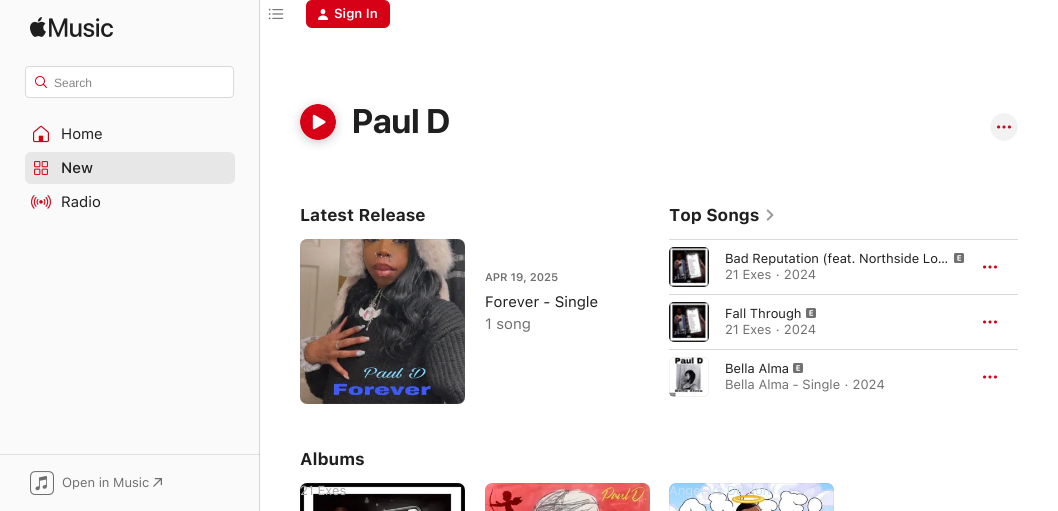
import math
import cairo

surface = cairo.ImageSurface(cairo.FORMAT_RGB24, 1058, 511)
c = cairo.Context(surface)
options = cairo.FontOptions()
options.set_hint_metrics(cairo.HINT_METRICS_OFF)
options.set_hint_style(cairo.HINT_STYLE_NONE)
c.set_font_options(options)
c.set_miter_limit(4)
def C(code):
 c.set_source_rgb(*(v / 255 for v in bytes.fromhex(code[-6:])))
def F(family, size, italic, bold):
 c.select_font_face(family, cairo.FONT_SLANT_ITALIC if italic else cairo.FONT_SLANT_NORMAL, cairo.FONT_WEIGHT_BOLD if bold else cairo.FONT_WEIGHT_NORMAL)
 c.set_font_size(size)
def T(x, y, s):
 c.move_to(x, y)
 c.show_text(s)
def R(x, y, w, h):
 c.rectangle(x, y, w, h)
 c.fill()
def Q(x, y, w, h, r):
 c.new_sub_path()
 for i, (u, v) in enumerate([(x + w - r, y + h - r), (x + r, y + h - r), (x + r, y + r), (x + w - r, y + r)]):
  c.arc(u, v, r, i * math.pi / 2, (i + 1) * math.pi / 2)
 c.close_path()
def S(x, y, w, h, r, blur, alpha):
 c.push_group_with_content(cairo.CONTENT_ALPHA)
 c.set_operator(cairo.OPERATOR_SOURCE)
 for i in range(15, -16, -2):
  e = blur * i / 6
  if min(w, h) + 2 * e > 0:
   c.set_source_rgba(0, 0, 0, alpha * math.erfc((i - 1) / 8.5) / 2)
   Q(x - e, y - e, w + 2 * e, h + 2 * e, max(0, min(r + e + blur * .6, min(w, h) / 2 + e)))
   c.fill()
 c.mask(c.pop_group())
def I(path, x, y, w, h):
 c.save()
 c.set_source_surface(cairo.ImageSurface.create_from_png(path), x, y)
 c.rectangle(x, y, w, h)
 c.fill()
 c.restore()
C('ffffff')
c.paint()
I('1.png',268,8,16,12)
C('d60017')
Q(306,0,84,28,6)
c.fill()
I('2.png',318,9,10,11)
F('SF SemiBold',13,0,0)
C('ffffff')
T(334,18,'Sign In')
C('fafafa')
R(0,0,259,511)
C('e1e1e1')
R(0,454,260,1)
C('d5d5d5')
R(259,0,1,511)
C('c0c0c0')
R(259,454,1,1)
I('3.png',30,17,83,20)
C('ffffff')
Q(25.5,66.5,208,31,3.5)
c.fill_preserve()
C('d9d9d9')
c.set_line_width(1)
c.stroke()
I('4.png',35,76,12,12)
F('Liberation Sans',12,0,0)
C('858585')
T(54,87,'Search')
I('5.png',33,125,16,18)
F('SF',15,0,0)
C('1f1f1f')
T(61,139,'Home')
C('e7e7e8')
Q(25,152,210,32,6)
c.fill()
I('6.png',34,161,14,14)
F('SF Medium',15,0,0)
C('1f1f1f')
T(61,173,'New')
I('7.png',31,195,20,14)
F('SF',15,0,0)
T(61,207,'Radio')
I('8.png',30,471,24,24)
F('SF',13,0,0)
C('707070')
T(62,487,'Open in Music')
I('9.png',153,478,9,9)
C('000000')
S(300,106,36,36,18,5,.2)
I('10.png',300,104,36,36)
F('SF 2',34,0,1)
C('1f1f1f')
T(352,133,'Paul D')
I('11.png',990,113,28,28)
F('SF',17,0,1)
T(300,221,'Latest Release')
I('12.png',300,239,165,165)
Q(300.5,239.5,164,164,6.5)
c.set_source_rgba(0.502,0.502,0.502,0.1)
c.stroke()
F('SF SemiBold',11,0,0)
C('707070')
T(485,281,'APR 19, 2025')
F('SF',15,0,0)
C('1f1f1f')
T(485,307,'Forever - Single')
C('707070')
T(485,329,'1 song')
F('SF',17,0,1)
C('1f1f1f')
T(669,221,'Top Songs')
I('13.png',766,209,8,12)
C('d9d9d9')
R(669,239,349,1)
I('14.png',669,247,40,40)
Q(669.5,247.5,39,39,4.5)
c.set_source_rgba(0.502,0.502,0.502,0.1)
c.stroke()
F('SF',13,0,0)
C('1f1f1f')
T(725,263,'Bad Reputation (feat. Northside Lo…')
I('15.png',954,253,10,10)
C('707070')
T(725,279,'21 Exes · 2024')
I('16.png',983,265,14,4)
C('d9d9d9')
R(669,294,349,1)
I('14.png',669,302,40,40)
Q(669.5,302.5,39,39,4.5)
c.set_source_rgba(0.502,0.502,0.502,0.1)
c.stroke()
C('1f1f1f')
T(725,318,'Fall Through')
I('15.png',806,308,10,10)
C('707070')
T(725,334,'21 Exes · 2024')
I('16.png',983,320,14,4)
C('d9d9d9')
R(669,349,349,1)
I('17.png',669,357,37,40)
Q(669.5,357.5,39,39,4.5)
c.set_source_rgba(0.502,0.502,0.502,0.1)
c.stroke()
C('1f1f1f')
T(725,373,'Bella Alma')
I('15.png',793,363,10,10)
C('707070')
T(725,389,'Bella Alma - Single · 2024')
I('16.png',983,375,14,4)
F('SF',17,0,1)
C('1f1f1f')
T(300,465,'Albums')
I('18.png',300,483,165,28)
Q(300.5,483.5,164,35,6.5)
c.set_source_rgba(0.502,0.502,0.502,0.1)
c.stroke()
F('SF',13,0,0)
C('aaaaaa')
T(300,495,'21 Exes')
I('19.png',485,483,165,28)
Q(485.5,483.5,163,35,6.5)
c.set_source_rgba(0.502,0.502,0.502,0.1)
c.stroke()
I('20.png',669,483,165,28)
Q(669.5,483.5,164,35,6.5)
c.stroke()
C('cde0f3')
T(669,495,'Angel Vs Demon')
surface.write_to_png('o.png')
